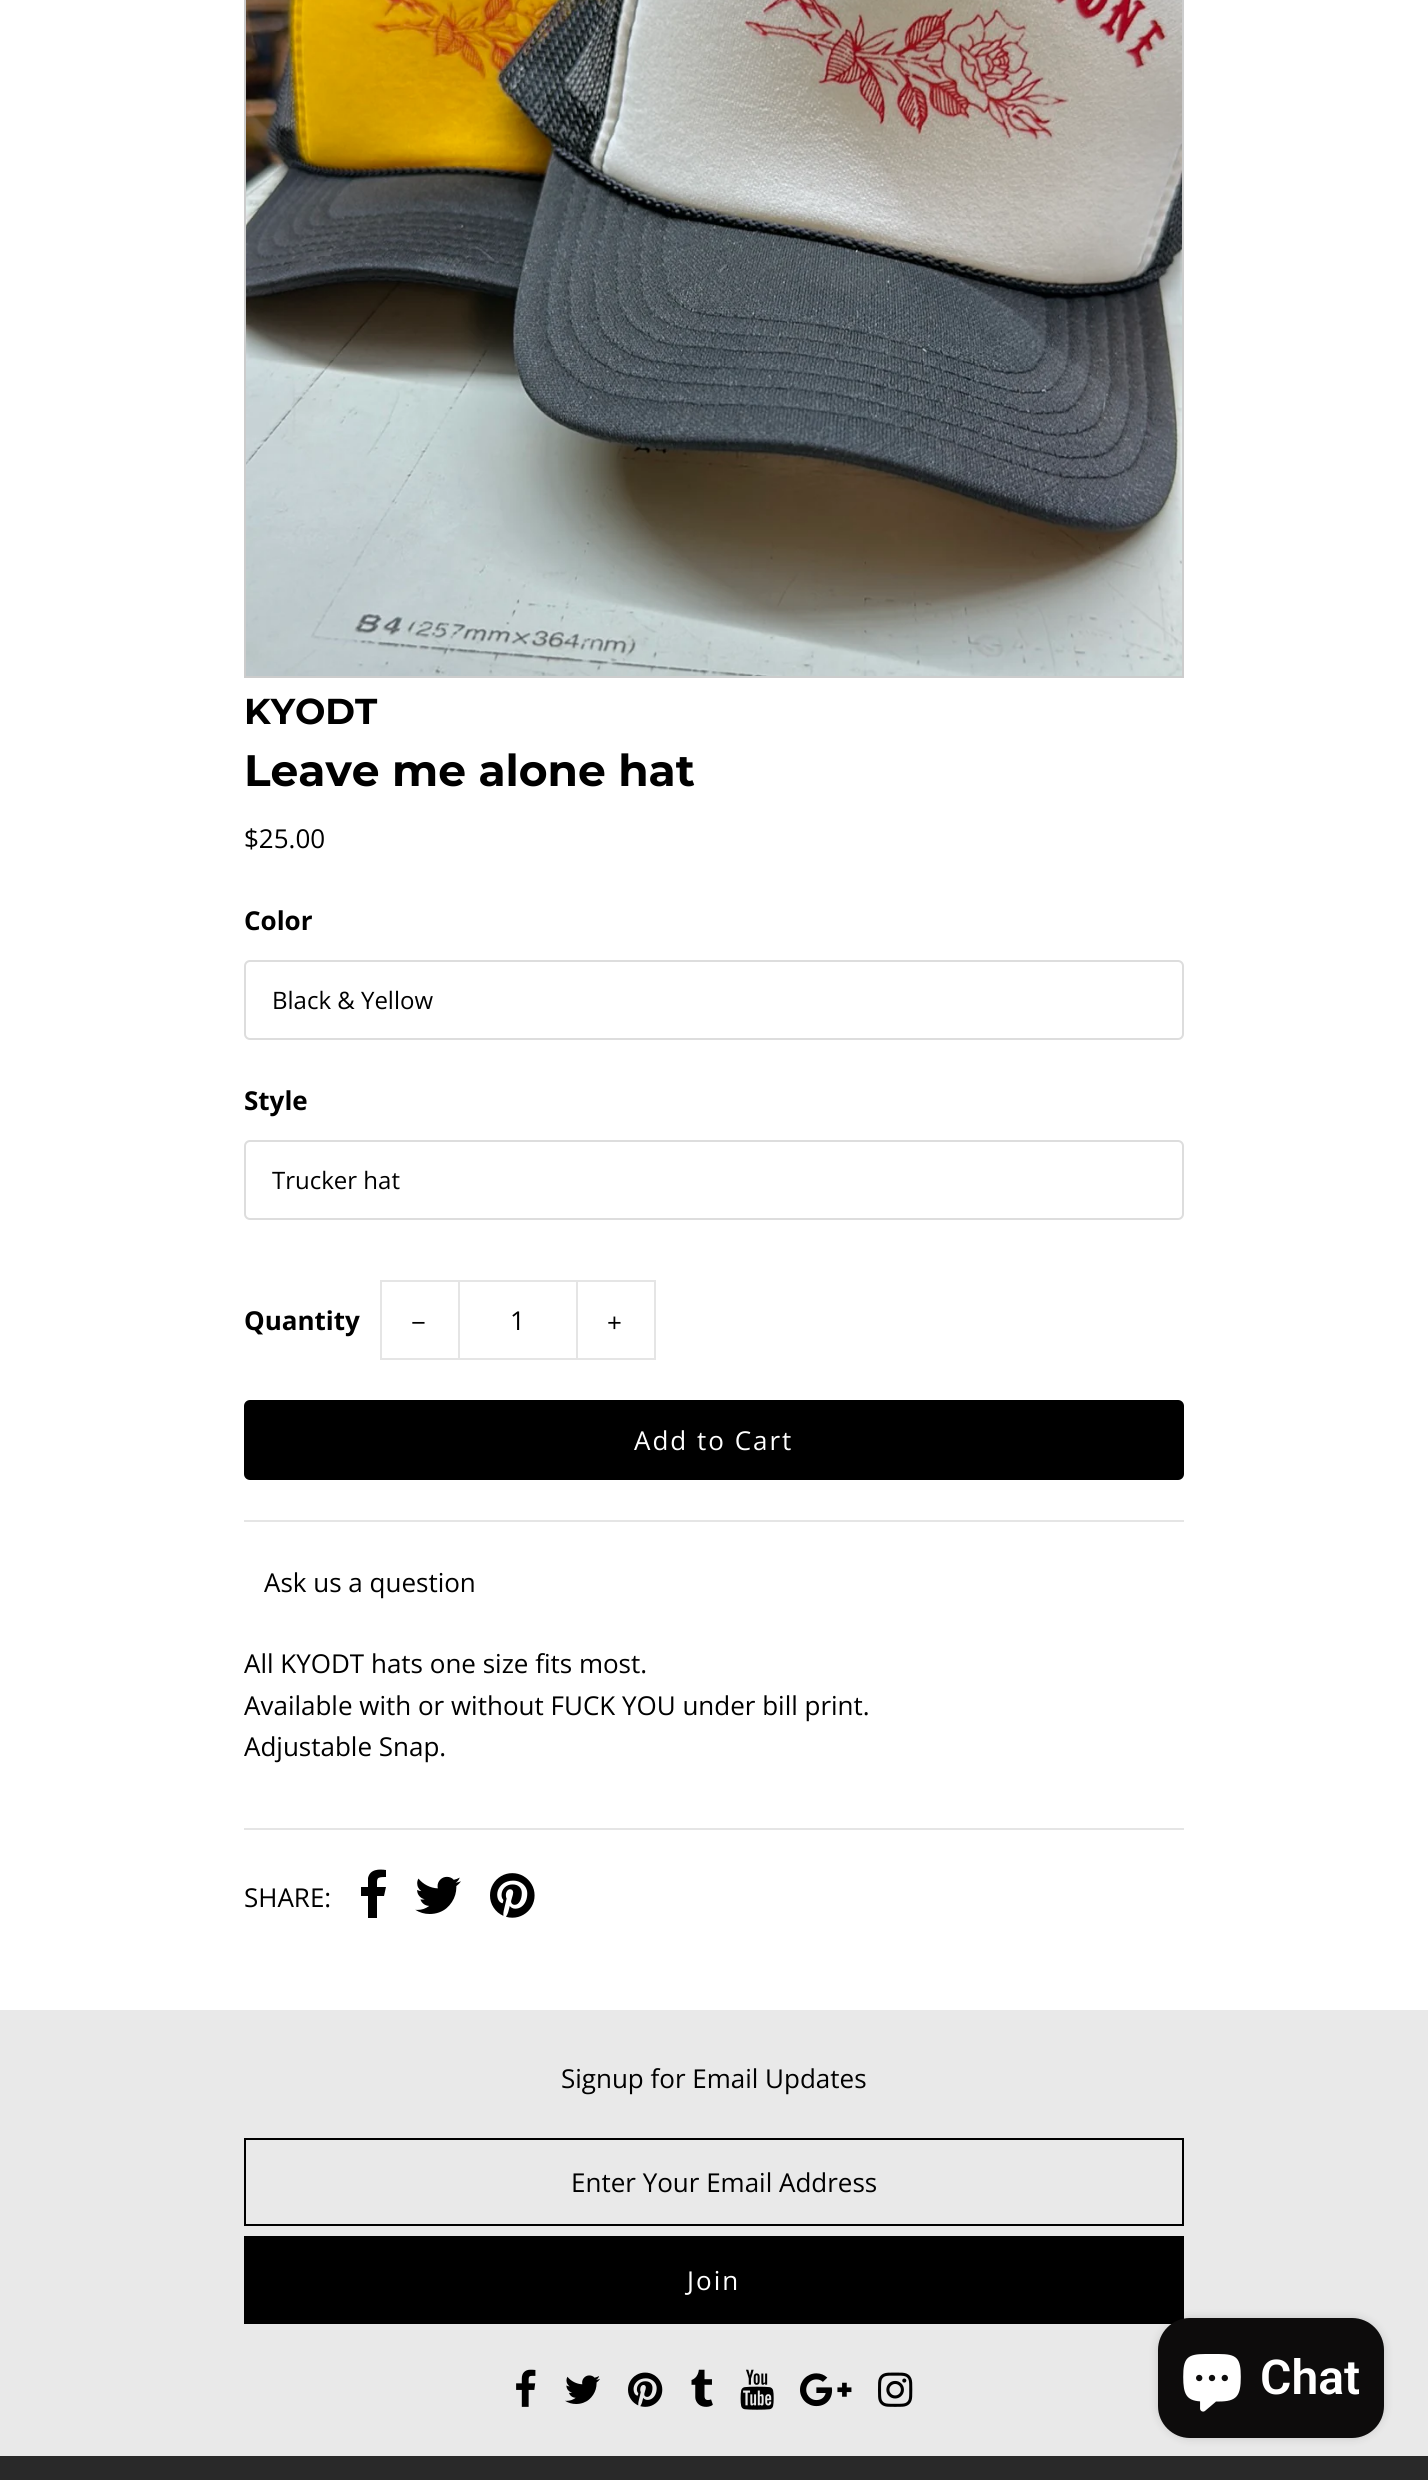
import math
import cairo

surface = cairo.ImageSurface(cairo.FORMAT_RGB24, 1428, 2480)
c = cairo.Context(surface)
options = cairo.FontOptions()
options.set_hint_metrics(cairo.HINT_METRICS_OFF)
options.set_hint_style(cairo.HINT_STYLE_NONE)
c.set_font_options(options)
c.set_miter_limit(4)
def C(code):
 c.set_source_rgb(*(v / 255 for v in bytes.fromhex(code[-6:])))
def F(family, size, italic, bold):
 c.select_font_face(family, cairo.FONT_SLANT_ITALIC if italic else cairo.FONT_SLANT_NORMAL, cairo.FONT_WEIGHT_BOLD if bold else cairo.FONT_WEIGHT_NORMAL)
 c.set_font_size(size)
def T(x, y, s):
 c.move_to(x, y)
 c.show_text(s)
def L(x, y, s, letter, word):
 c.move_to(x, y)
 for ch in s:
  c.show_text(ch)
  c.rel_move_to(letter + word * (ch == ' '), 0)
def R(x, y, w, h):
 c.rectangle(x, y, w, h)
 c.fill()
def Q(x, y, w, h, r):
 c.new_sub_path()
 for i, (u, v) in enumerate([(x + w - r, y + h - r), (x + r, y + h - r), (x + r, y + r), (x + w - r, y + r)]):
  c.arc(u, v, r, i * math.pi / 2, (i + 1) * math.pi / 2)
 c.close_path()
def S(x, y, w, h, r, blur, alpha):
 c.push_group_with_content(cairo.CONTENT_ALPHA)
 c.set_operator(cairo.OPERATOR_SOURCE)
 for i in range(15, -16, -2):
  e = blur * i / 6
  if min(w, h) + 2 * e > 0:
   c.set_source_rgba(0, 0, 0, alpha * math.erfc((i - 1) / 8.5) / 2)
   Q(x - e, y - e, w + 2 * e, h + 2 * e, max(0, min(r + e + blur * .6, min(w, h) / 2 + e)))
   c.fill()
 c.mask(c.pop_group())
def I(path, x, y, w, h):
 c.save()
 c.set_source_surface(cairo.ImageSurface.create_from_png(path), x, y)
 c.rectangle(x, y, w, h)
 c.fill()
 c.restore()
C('ffffff')
c.paint()
c.rectangle(245,-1,938,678)
C('cccccc')
c.stroke()
I('1.png',246,0,936,676)
F('Montserrat',36,0,1)
C('000000')
T(244,724,'KYODT')
F('Montserrat',44,0,1)
T(244,786,'Leave me alone hat')
F('Open Sans',26,0,0)
T(244,848,'$25.00')
C('e5e5e5')
R(244,1520,940,2)
F('Open Sans',26,0,1)
C('000000')
T(244,930,'Color')
Q(245,961,938,78,5)
C('dddddd')
c.stroke()
F('Open Sans',24,0,0)
C('000000')
T(272,1009,'Black & Yellow')
F('Open Sans',26,0,1)
T(244,1110,'Style')
Q(245,1141,938,78,5)
C('dddddd')
c.stroke()
F('Open Sans',24,0,0)
C('000000')
T(272,1189,'Trucker hat')
F('Open Sans',26,0,1)
T(244,1330,'Quantity')
c.rectangle(381,1281,78,78)
C('e5e5e5')
c.stroke()
F('Open Sans',26,0,0)
C('000000')
L(411,1332,'−',2,0)
c.rectangle(459,1281,118,78)
C('e5e5e5')
c.stroke()
C('000000')
T(510,1330,'1')
c.rectangle(577,1281,78,78)
C('e5e5e5')
c.stroke()
C('000000')
L(607,1332,'+',2,0)
Q(244,1400,940,80,6)
c.fill()
C('ffffff')
L(634,1450,'Add to Cart',2,0)
C('000000')
T(264,1592,'Ask us a question')
T(244,1673,'All KYODT hats one size fits most.')
T(244,1715,'Available with or without FUCK YOU under bill print.')
T(244,1756,'Adjustable Snap.')
C('e5e5e5')
R(244,1828,940,2)
C('000000')
T(244,1907,'SHARE:')
c.new_path()
c.move_to(386,1870)
c.line_to(386,1877)
c.curve_to(376,1877,377,1878,377,1887)
c.line_to(386,1887)
c.line_to(384,1896)
c.line_to(377,1896)
c.line_to(377,1918)
c.line_to(368,1918)
c.line_to(368,1896)
c.line_to(361,1896)
c.line_to(361,1887)
c.line_to(368,1887)
c.line_to(368,1878)
c.curve_to(370,1869,379,1869,386,1870)
c.close_path()
c.fill()
I('2.png',415,1876,46,38)
I('3.png',490,1873,45,45)
C('e9e9e9')
R(0,2010,1428,446)
C('000000')
T(561,2088,'Signup for Email Updates')
c.rectangle(245,2139,938,86)
c.stroke()
T(571,2192,'Enter Your Email Address')
R(244,2236,940,88)
C('ffffff')
L(687,2290,'Join',2,0)
I('4.png',516,2369,20,38)
I('5.png',565,2375,35,29)
I('6.png',628,2372,35,35)
I('7.png',691,2369,22,38)
I('8.png',740,2369,34,41)
I('9.png',800,2373,52,34)
I('10.png',878,2372,35,35)
C('292929')
R(0,2456,1428,24)
C('000000')
S(1158,2318,226,120,32,5,.15)
C('0d0c0c')
Q(1158,2318,226,120,32)
c.fill()
I('11.png',1183,2354,58,58)
F('Roboto SemiBold',48,0,0)
C('ffffff')
T(1260,2394,'Chat')
surface.write_to_png('o.png')
